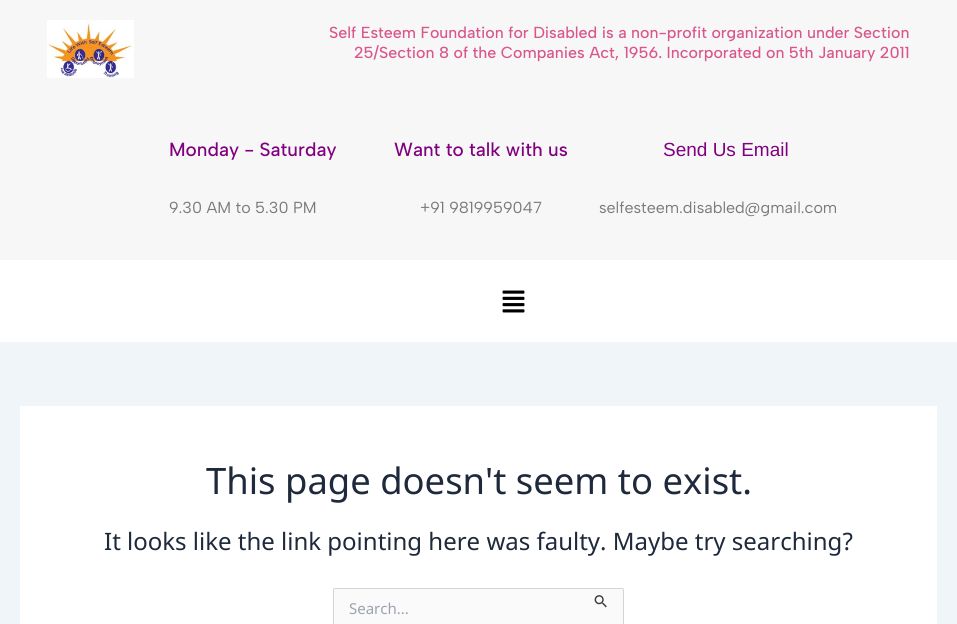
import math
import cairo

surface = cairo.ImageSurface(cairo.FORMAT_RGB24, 957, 624)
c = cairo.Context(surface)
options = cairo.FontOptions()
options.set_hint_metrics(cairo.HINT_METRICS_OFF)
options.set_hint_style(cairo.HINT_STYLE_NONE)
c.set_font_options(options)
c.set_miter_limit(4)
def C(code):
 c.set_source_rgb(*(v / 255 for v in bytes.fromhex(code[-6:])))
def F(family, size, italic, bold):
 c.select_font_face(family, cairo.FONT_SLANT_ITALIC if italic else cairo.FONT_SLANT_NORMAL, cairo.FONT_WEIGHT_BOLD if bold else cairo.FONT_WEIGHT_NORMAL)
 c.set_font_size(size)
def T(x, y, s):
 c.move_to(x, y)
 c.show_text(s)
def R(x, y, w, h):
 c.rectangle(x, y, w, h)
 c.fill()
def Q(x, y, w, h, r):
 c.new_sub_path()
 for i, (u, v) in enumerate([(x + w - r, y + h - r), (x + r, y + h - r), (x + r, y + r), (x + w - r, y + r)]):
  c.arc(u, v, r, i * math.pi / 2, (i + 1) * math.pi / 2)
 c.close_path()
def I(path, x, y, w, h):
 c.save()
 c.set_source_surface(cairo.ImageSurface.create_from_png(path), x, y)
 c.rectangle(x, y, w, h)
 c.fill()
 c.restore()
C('f0f5fa')
c.paint()
C('f7f7f7')
R(0,0,957,260)
I('1.png',47,20,87,58)
F('Albert Sans Medium',16,0,0)
C('d9568b')
T(329,38,'Self Esteem Foundation for Disabled is a non-profit organization under Section')
T(354,58,'25/Section 8 of the Companies Act, 1956. Incorporated on 5th January 2011')
F('Albert Sans Medium',19,0,0)
C('800080')
T(169,156,'Monday - Saturday')
F('Albert Sans',16,0,0)
C('7a7a7a')
T(169,213,'9.30 AM to 5.30 PM')
F('Albert Sans Medium',19,0,0)
C('800080')
T(394,156,'Want to talk with us')
F('Albert Sans',16,0,0)
C('7a7a7a')
T(420,213,'+91 9819959047')
F('Liberation Sans',19,0,0)
C('800080')
T(663,156,'Send Us Email')
F('Albert Sans',16,0,0)
C('7a7a7a')
T(599,213,'selfesteem.disabled@gmail.com')
C('ffffff')
R(0,260,957,82)
I('2.png',502,290,23,23)
R(20,406,917,218)
F('Noto Sans',36.4,0,0)
C('1e293b')
T(206,494,'This page doesn\'t seem to exist.')
F('Noto Sans',24,0,0)
T(104,550,'It looks like the link pointing here was faulty. Maybe try searching?')
C('fafafa')
Q(333.5,588.5,290,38,1.5)
c.fill_preserve()
C('d1d5db')
c.set_line_width(1)
c.stroke()
F('Noto Sans',15,0,0)
C('9ca3af')
T(349,614,'Search...')
I('3.png',594,595,13,13)
surface.write_to_png('o.png')
